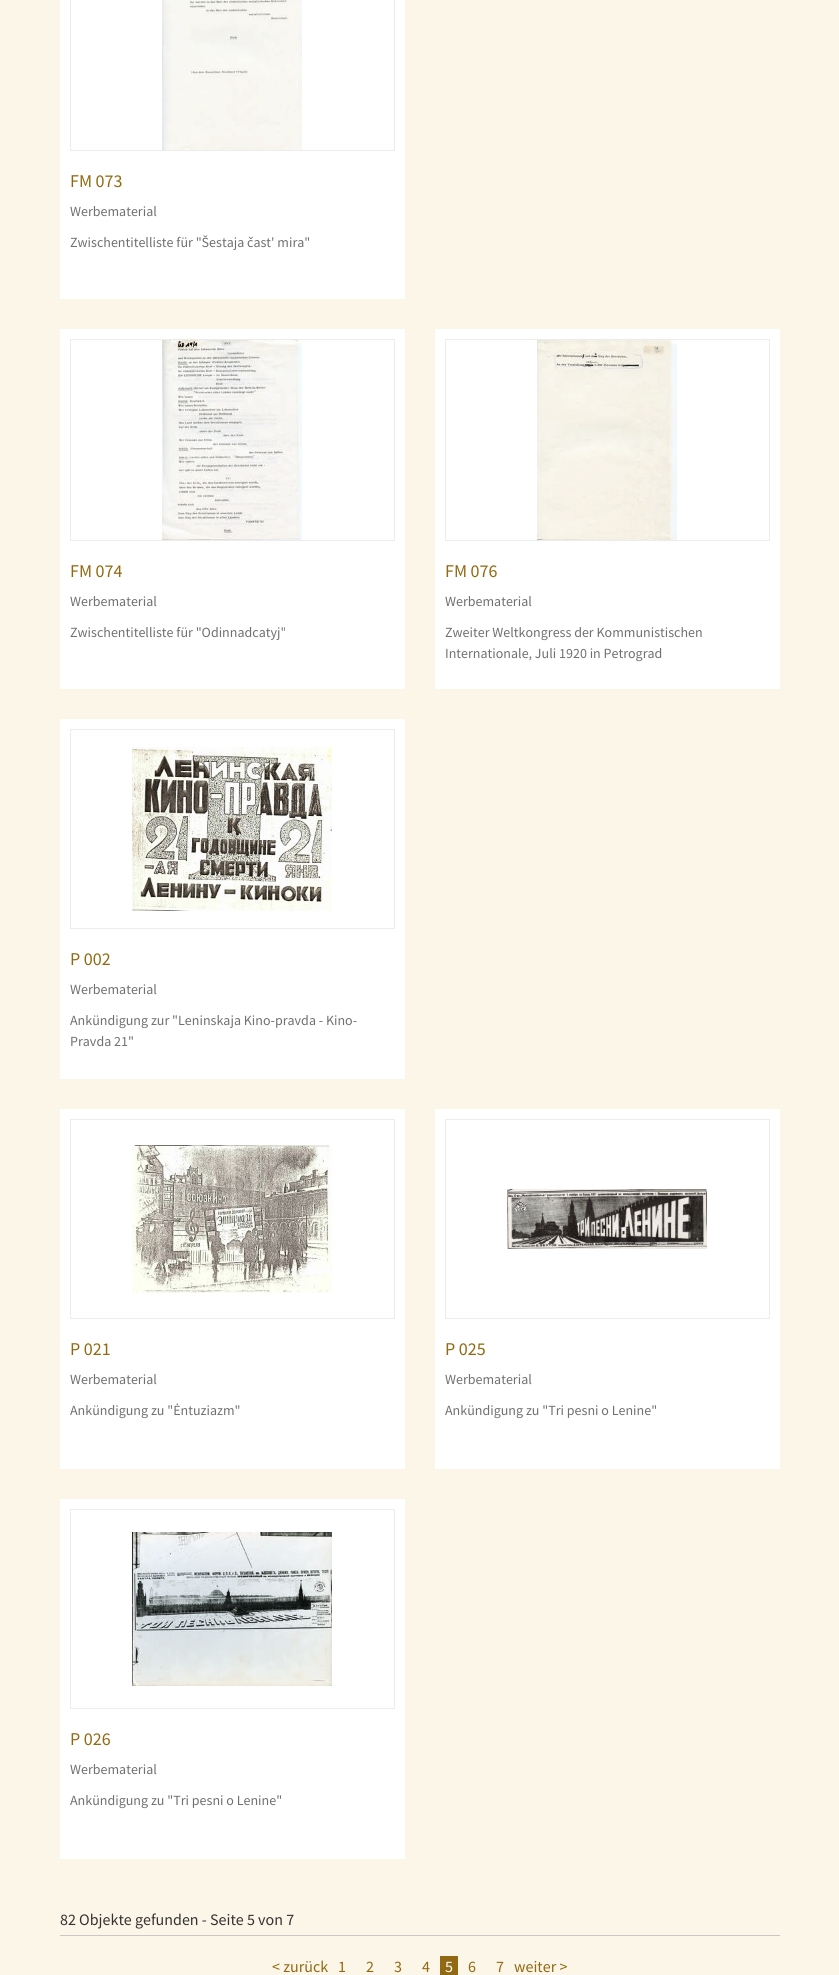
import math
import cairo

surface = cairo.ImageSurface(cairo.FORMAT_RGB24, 839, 1975)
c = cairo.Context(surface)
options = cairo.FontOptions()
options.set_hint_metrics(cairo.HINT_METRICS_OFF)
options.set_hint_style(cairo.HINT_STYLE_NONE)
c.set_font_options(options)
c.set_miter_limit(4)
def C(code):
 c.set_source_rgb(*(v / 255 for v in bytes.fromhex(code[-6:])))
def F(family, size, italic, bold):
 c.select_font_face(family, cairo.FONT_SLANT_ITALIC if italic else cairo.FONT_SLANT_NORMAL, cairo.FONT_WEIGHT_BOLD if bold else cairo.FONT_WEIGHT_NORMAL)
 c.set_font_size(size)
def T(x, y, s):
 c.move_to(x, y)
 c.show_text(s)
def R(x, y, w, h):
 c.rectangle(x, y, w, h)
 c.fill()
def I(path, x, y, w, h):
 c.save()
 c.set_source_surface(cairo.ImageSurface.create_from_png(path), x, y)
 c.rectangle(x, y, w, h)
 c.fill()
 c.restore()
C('fcf6e8')
c.paint()
C('ffffff')
R(60,0,345,299)
c.rectangle(70.5,-.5,324,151)
C('ececec')
c.set_line_width(1)
c.stroke()
I('1.png',162,0,140,150)
F('Source Sans Pro',18,0,0)
C('916912')
T(70,187,'FM 073')
F('Source Sans Pro',14,0,0)
C('707070')
T(70,216,'Werbematerial')
T(70,247,'Zwischentitelliste für "Šestaja čast\' mira"')
C('ffffff')
R(60,329,345,360)
c.rectangle(70.5,339.5,324,201)
C('ececec')
c.stroke()
I('2.png',162,340,140,200)
F('Source Sans Pro',18,0,0)
C('916912')
T(70,577,'FM 074')
F('Source Sans Pro',14,0,0)
C('707070')
T(70,606,'Werbematerial')
T(70,637,'Zwischentitelliste für "Odinnadcatyj"')
C('ffffff')
R(435,329,345,360)
c.rectangle(445.5,339.5,324,201)
C('ececec')
c.stroke()
I('3.png',537,340,140,200)
F('Source Sans Pro',18,0,0)
C('916912')
T(445,577,'FM 076')
F('Source Sans Pro',14,0,0)
C('707070')
T(445,606,'Werbematerial')
T(445,637,'Zweiter Weltkongress der Kommunistischen')
T(445,658,'Internationale, Juli 1920 in Petrograd')
C('ffffff')
R(60,719,345,360)
c.rectangle(70.5,729.5,324,199)
C('ececec')
c.stroke()
I('4.png',132,747,200,164)
F('Source Sans Pro',18,0,0)
C('916912')
T(70,965,'P 002')
F('Source Sans Pro',14,0,0)
C('707070')
T(70,994,'Werbematerial')
T(70,1025,'Ankündigung zur "Leninskaja Kino-pravda - Kino-')
T(70,1046,'Pravda 21"')
C('ffffff')
R(60,1109,345,360)
c.rectangle(70.5,1119.5,324,199)
C('ececec')
c.stroke()
I('5.png',132,1145,200,148)
F('Source Sans Pro',18,0,0)
C('916912')
T(70,1355,'P 021')
F('Source Sans Pro',14,0,0)
C('707070')
T(70,1384,'Werbematerial')
T(70,1415,'Ankündigung zu "Ėntuziazm"')
C('ffffff')
R(435,1109,345,360)
c.rectangle(445.5,1119.5,324,199)
C('ececec')
c.stroke()
I('6.png',507,1189,200,60)
F('Source Sans Pro',18,0,0)
C('916912')
T(445,1355,'P 025')
F('Source Sans Pro',14,0,0)
C('707070')
T(445,1384,'Werbematerial')
T(445,1415,'Ankündigung zu "Tri pesni o Lenine"')
C('ffffff')
R(60,1499,345,360)
c.rectangle(70.5,1509.5,324,199)
C('ececec')
c.stroke()
I('7.png',132,1532,200,154)
F('Source Sans Pro',18,0,0)
C('916912')
T(70,1745,'P 026')
F('Source Sans Pro',14,0,0)
C('707070')
T(70,1774,'Werbematerial')
T(70,1805,'Ankündigung zu "Tri pesni o Lenine"')
C('c7c7c7')
R(60,1935,720,1)
F('Source Sans Pro',16,0,0)
C('333333')
T(60,1925,'82 Objekte gefunden - Seite 5 von 7')
C('916912')
T(272,1972,'< zurück')
T(338,1972,'1')
T(366,1972,'2')
T(394,1972,'3')
T(422,1972,'4')
R(440,1956,18,19)
C('ffffff')
T(445,1972,'5')
C('916912')
T(468,1972,'6')
T(496,1972,'7')
T(514,1972,'weiter >')
surface.write_to_png('o.png')
